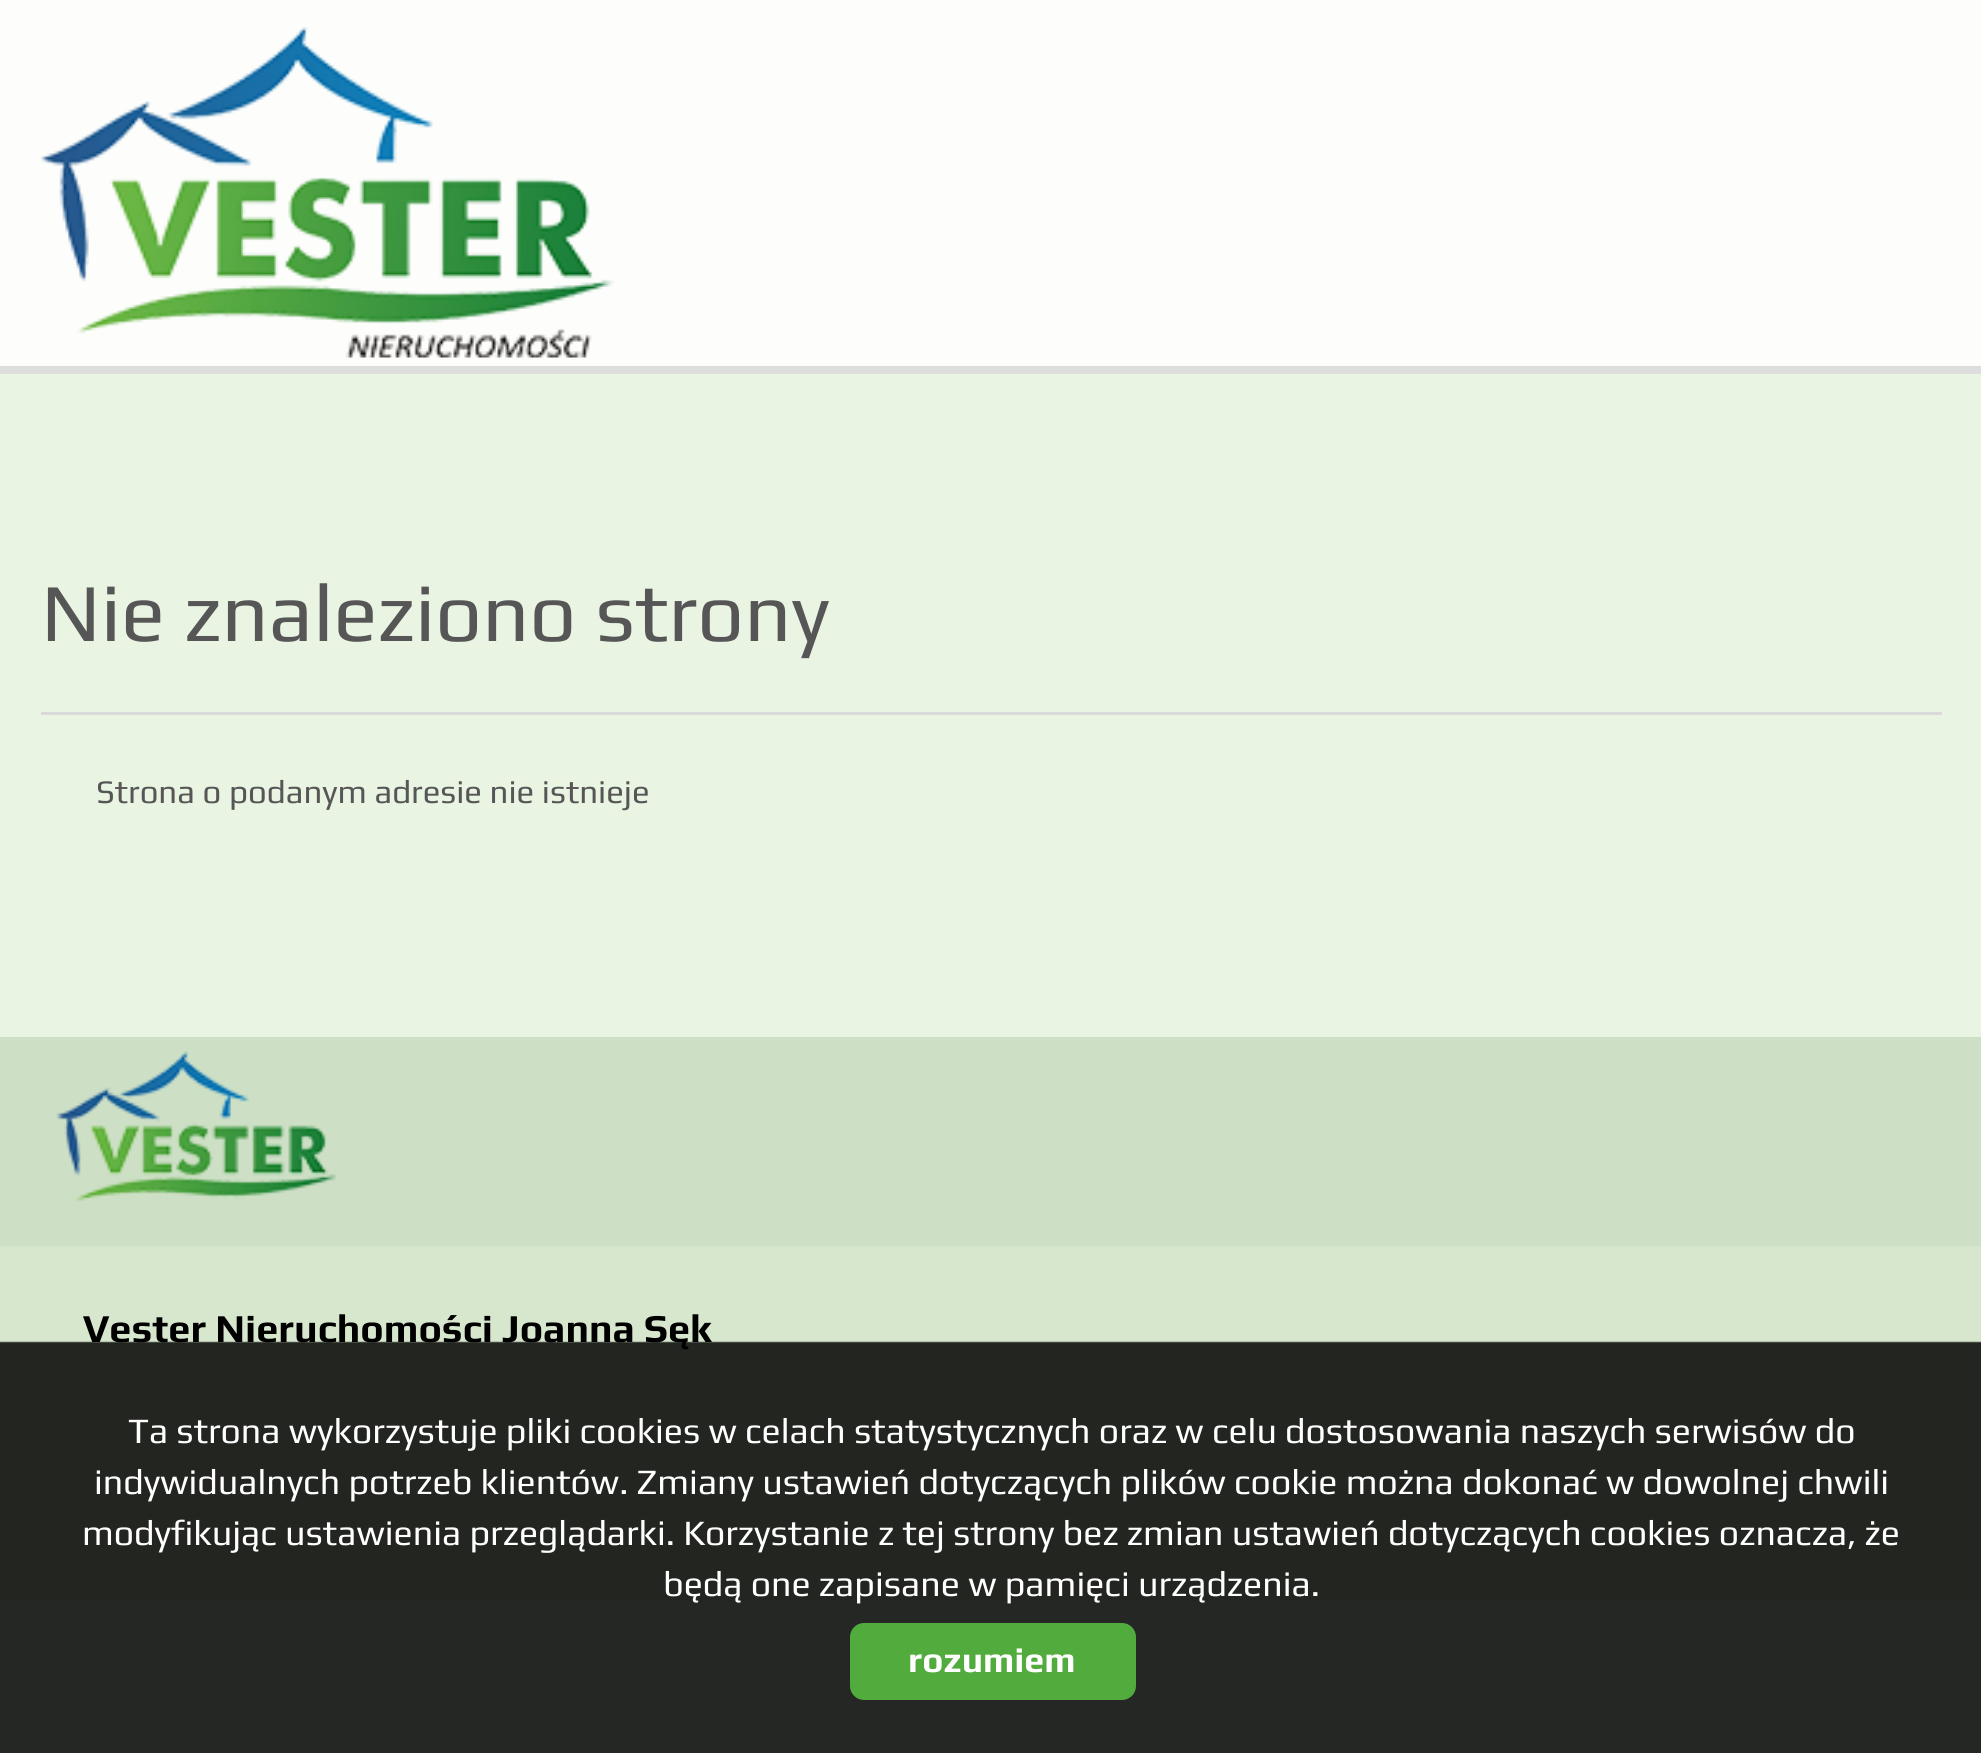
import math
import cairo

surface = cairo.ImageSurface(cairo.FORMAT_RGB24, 1981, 1753)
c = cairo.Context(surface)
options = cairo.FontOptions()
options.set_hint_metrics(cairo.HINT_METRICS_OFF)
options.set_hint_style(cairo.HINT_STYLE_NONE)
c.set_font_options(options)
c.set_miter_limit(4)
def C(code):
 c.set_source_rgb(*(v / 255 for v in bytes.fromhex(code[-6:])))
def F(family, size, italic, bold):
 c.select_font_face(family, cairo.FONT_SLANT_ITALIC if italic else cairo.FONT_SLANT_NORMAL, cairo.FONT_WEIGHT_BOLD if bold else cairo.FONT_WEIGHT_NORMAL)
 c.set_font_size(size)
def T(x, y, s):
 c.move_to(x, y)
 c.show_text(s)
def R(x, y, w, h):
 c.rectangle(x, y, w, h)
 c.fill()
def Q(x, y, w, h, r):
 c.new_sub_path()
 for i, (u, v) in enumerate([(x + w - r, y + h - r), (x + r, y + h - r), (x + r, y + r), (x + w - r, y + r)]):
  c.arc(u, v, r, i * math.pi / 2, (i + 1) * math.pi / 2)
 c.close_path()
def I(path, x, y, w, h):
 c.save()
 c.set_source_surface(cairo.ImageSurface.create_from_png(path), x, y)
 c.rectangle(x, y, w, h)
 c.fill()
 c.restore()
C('e9f4e3')
c.paint()
C('fdfefc')
R(0,0,1981,366)
C('dddddd')
R(0,366,1981,8)
I('1.png',41,27,573,331)
C('d9d9d9')
R(41,712,1901,3)
F('Play',82.5,0,0)
C('565656')
T(41,641,'Nie znaleziono strony')
F('Play',33,0,0)
T(96,803,'Strona o podanym adresie nie istnieje')
C('cddfc4')
R(0,1037,1981,209)
I('2.png',56,1051,281,151)
C('d7e7ce')
R(0,1246,1981,355)
F('Play',39.6,0,1)
C('000000')
T(83,1342,'Vester Nieruchomości Joanna Sęk')
I('3.png',0,1341,1981,412)
F('Play',35.75,0,0)
C('ffffff')
T(128,1443,'Ta strona wykorzystuje pliki cookies w celach statystycznych oraz w celu dostosowania naszych serwisów do')
T(94,1494,'indywidualnych potrzeb klientów. Zmiany ustawień dotyczących plików cookie można dokonać w dowolnej chwili')
T(82,1545,'modyfikując ustawienia przeglądarki. Korzystanie z tej strony bez zmian ustawień dotyczących cookies oznacza, że')
T(663,1596,'będą one zapisane w pamięci urządzenia.')
C('52ab3d')
Q(850,1623,286,77,14)
c.fill()
F('Play',35.75,0,1)
C('ffffff')
T(908,1672,'rozumiem')
surface.write_to_png('o.png')
